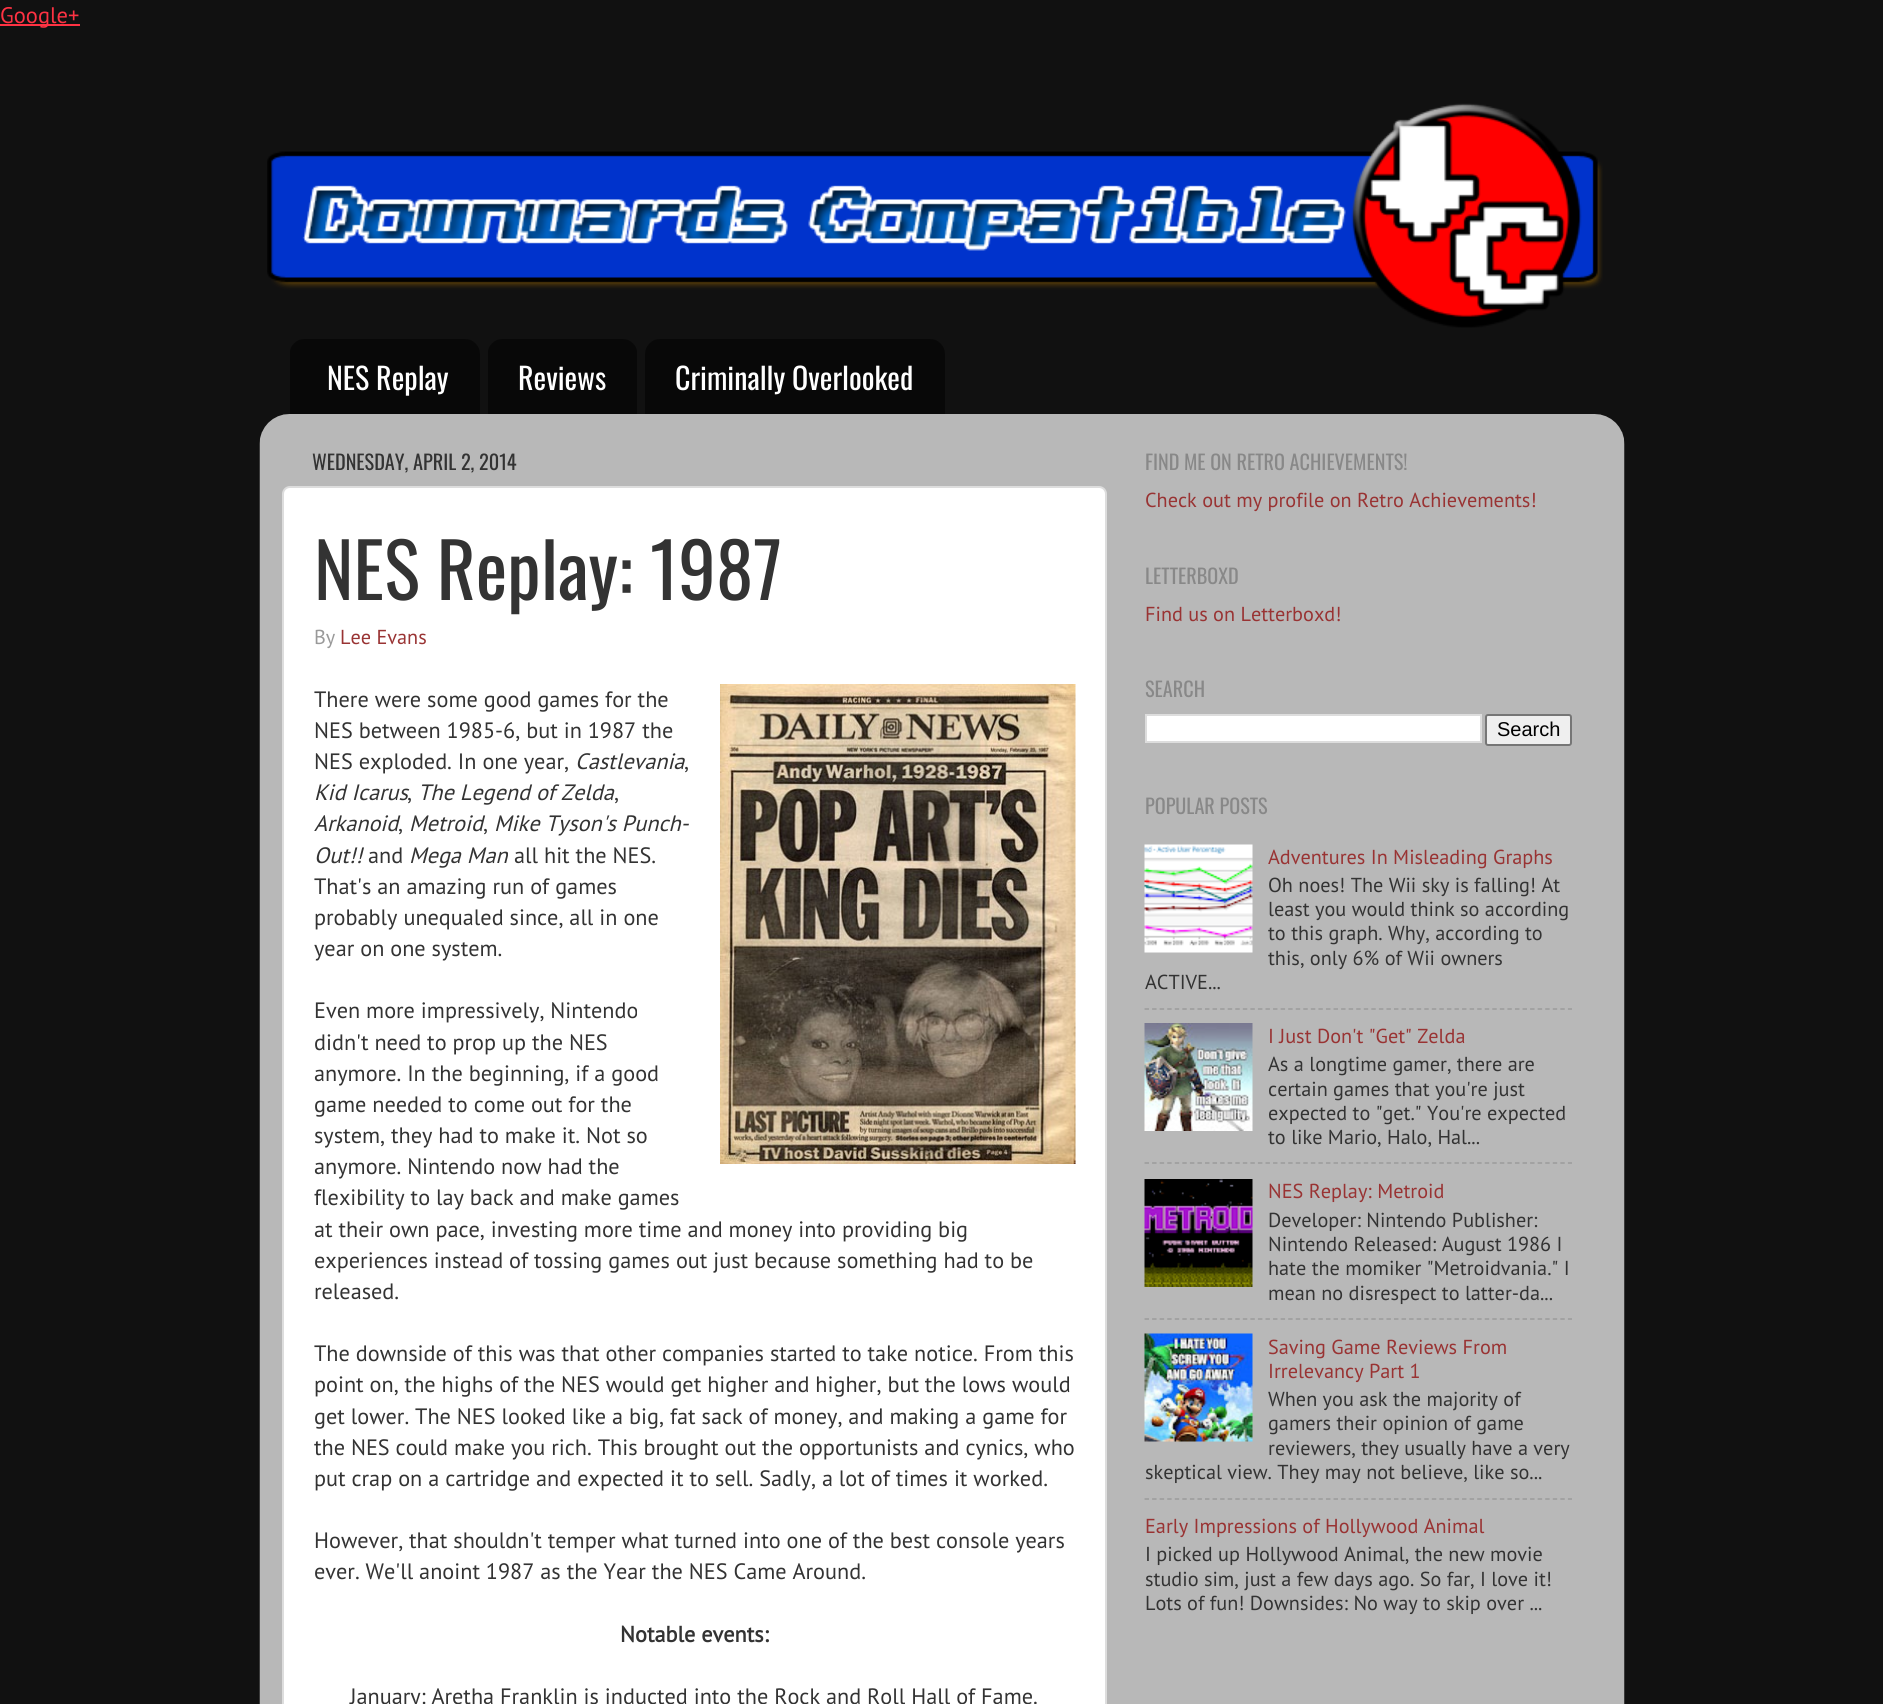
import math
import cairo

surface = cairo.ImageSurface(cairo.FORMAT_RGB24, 1883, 1704)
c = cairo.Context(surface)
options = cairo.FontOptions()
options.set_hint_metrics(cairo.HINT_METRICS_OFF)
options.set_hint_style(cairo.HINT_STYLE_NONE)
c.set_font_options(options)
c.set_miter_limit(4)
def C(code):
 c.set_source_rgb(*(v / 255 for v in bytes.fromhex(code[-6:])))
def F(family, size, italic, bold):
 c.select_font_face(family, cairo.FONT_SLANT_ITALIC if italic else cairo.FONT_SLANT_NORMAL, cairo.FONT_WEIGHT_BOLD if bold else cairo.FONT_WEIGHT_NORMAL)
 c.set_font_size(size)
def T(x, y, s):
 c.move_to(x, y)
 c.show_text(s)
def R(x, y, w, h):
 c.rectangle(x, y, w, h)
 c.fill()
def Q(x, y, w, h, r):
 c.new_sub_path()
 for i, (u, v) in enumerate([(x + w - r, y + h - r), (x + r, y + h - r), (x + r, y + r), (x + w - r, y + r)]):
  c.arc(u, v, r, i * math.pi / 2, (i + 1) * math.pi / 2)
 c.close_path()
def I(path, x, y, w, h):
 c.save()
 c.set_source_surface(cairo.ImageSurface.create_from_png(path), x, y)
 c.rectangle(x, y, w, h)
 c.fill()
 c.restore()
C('111111')
c.paint()
C('ff3243')
R(0,24,80,2)
F('PT Sans',22.5,0,0)
T(0,23,'Google+')
I('1.png',267,103,1336,225)
I('2.png',290,339,190,75)
F('Oswald',30,0,0)
C('ffffff')
T(327,390,'NES Replay')
I('3.png',488,339,149,75)
T(518,390,'Reviews')
I('4.png',645,339,300,75)
T(675,390,'Criminally Overlooked')
I('5.png',259,414,1366,1290)
F('Oswald',20.25,0,0)
C('333333')
T(312,470,'WEDNESDAY, APRIL 2, 2014')
C('ffffff')
Q(283,487,823,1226,7)
c.fill_preserve()
C('dddddd')
c.stroke()
F('Oswald',75,0,0)
C('333333')
T(314,600,'NES Replay: 1987')
F('PT Sans',20.25,0,0)
C('999999')
T(314,644,'By')
C('993333')
T(340,644,'Lee Evans')
F('PT Sans',22.25,0,0)
C('333333')
T(314,707,'There were some good games for the')
I('6.png',720,684,356,480)
T(314,738,'NES between 1985-6, but in 1987 the')
T(314,769,'NES exploded. In one year,')
F('PT Sans',22.25,1,0)
T(575,769,'Castlevania')
F('PT Sans',22.25,0,0)
T(684,769,',')
F('PT Sans',22.25,1,0)
T(314,800,'Kid Icarus')
F('PT Sans',22.25,0,0)
T(407,800,',')
F('PT Sans',22.25,1,0)
T(418,800,'The Legend of Zelda')
F('PT Sans',22.25,0,0)
T(614,800,',')
F('PT Sans',22.25,1,0)
T(314,831,'Arkanoid')
T(409,831,'Metroid')
T(494,831,'Mike Tyson\'s Punch-')
F('PT Sans',22.25,0,0)
T(398,831,',')
T(483,831,',')
F('PT Sans',22.25,1,0)
T(314,863,'Out!!')
F('PT Sans',22.25,0,0)
T(368,863,'and')
F('PT Sans',22.25,1,0)
T(409,863,'Mega Man')
F('PT Sans',22.25,0,0)
T(514,863,'all hit the NES.')
T(314,894,'That\'s an amazing run of games')
T(314,925,'probably unequaled since, all in one')
T(314,956,'year on one system.')
T(314,1018,'Even more impressively, Nintendo')
T(314,1050,'didn\'t need to prop up the NES')
T(314,1081,'anymore. In the beginning, if a good')
T(314,1112,'game needed to come out for the')
T(314,1143,'system, they had to make it. Not so')
T(314,1174,'anymore. Nintendo now had the')
T(314,1205,'flexibility to lay back and make games')
T(314,1237,'at their own pace, investing more time and money into providing big')
T(314,1268,'experiences instead of tossing games out just because something had to be')
T(314,1299,'released.')
T(314,1361,'The downside of this was that other companies started to take notice. From this')
T(314,1392,'point on, the highs of the NES would get higher and higher, but the lows would')
T(314,1424,'get lower. The NES looked like a big, fat sack of money, and making a game for')
T(314,1455,'the NES could make you rich. This brought out the opportunists and cynics, who')
T(314,1486,'put crap on a cartridge and expected it to sell. Sadly, a lot of times it worked.')
T(314,1548,'However, that shouldn\'t temper what turned into one of the best console years')
T(314,1579,'ever. We\'ll anoint 1987 as the Year the NES Came Around.')
F('PT Sans',22.25,0,1)
T(620,1642,'Notable events:')
F('PT Sans',22.25,0,0)
T(350,1704,'January: Aretha Franklin is inducted into the Rock and Roll Hall of Fame.')
F('Oswald',20.25,0,0)
C('888888')
T(1145,470,'FIND ME ON RETRO ACHIEVEMENTS!')
F('PT Sans',20.25,0,0)
C('993333')
T(1145,507,'Check out my profile on Retro Achievements!')
F('Oswald',20.25,0,0)
C('888888')
T(1145,584,'LETTERBOXD')
F('PT Sans',20.25,0,0)
C('993333')
T(1145,621,'Find us on Letterboxd!')
F('Oswald',20.25,0,0)
C('888888')
T(1145,697,'SEARCH')
C('ffffff')
c.rectangle(1146,715,335,27)
c.fill_preserve()
C('dddddd')
c.stroke()
C('efefef')
Q(1486,715,85,30,2)
c.fill_preserve()
C('767676')
c.stroke()
F('Liberation Sans',20,0,0)
C('000000')
T(1497,736,'Search')
F('Oswald',20.25,0,0)
C('888888')
T(1145,814,'POPULAR POSTS')
I('7.png',1144,844,109,109)
F('PT Sans',20.25,0,0)
C('993333')
T(1268,864,'Adventures In Misleading Graphs')
C('333333')
T(1268,892,'Oh noes! The Wii sky is falling! At')
T(1268,916,'least you would think so according')
T(1268,940,'to this graph. Why, according to')
T(1268,965,'this, only 6% of Wii owners')
T(1145,989,'ACTIVE...')
c.new_path()
c.move_to(1144.5,1009)
c.line_to(1572,1009)
C('9c9c9c')
c.set_line_width(1.5)
c.set_dash([4.5,3.06])
c.stroke()
I('8.png',1144,1023,109,108)
C('993333')
T(1268,1043,'I Just Don\'t "Get" Zelda')
C('333333')
T(1268,1071,'As a longtime gamer, there are')
T(1268,1096,'certain games that you\'re just')
T(1268,1120,'expected to "get." You\'re expected')
T(1268,1144,'to like Mario, Halo, Hal...')
c.new_path()
c.move_to(1144.5,1163)
c.line_to(1572,1163)
C('9c9c9c')
c.stroke()
I('9.png',1144,1179,109,108)
C('993333')
T(1268,1198,'NES Replay: Metroid')
C('333333')
T(1268,1227,'Developer: Nintendo Publisher:')
T(1268,1251,'Nintendo Released: August 1986 I')
T(1268,1275,'hate the momiker "Metroidvania." I')
T(1268,1300,'mean no disrespect to latter-da...')
c.new_path()
c.move_to(1144.5,1319)
c.line_to(1572,1319)
C('9c9c9c')
c.stroke()
I('10.png',1144,1333,109,109)
C('993333')
T(1268,1354,'Saving Game Reviews From')
T(1268,1378,'Irrelevancy Part 1')
C('333333')
T(1268,1406,'When you ask the majority of')
T(1268,1430,'gamers their opinion of game')
T(1268,1455,'reviewers, they usually have a very')
T(1145,1479,'skeptical view. They may not believe, like so...')
c.new_path()
c.move_to(1144.5,1499)
c.line_to(1572,1499)
C('9c9c9c')
c.stroke()
C('993333')
T(1145,1533,'Early Impressions of Hollywood Animal')
C('333333')
T(1145,1561,'I picked up Hollywood Animal, the new movie')
T(1145,1586,'studio sim, just a few days ago. So far, I love it!')
T(1145,1610,'Lots of fun! Downsides: No way to skip over ...')
surface.write_to_png('o.png')
